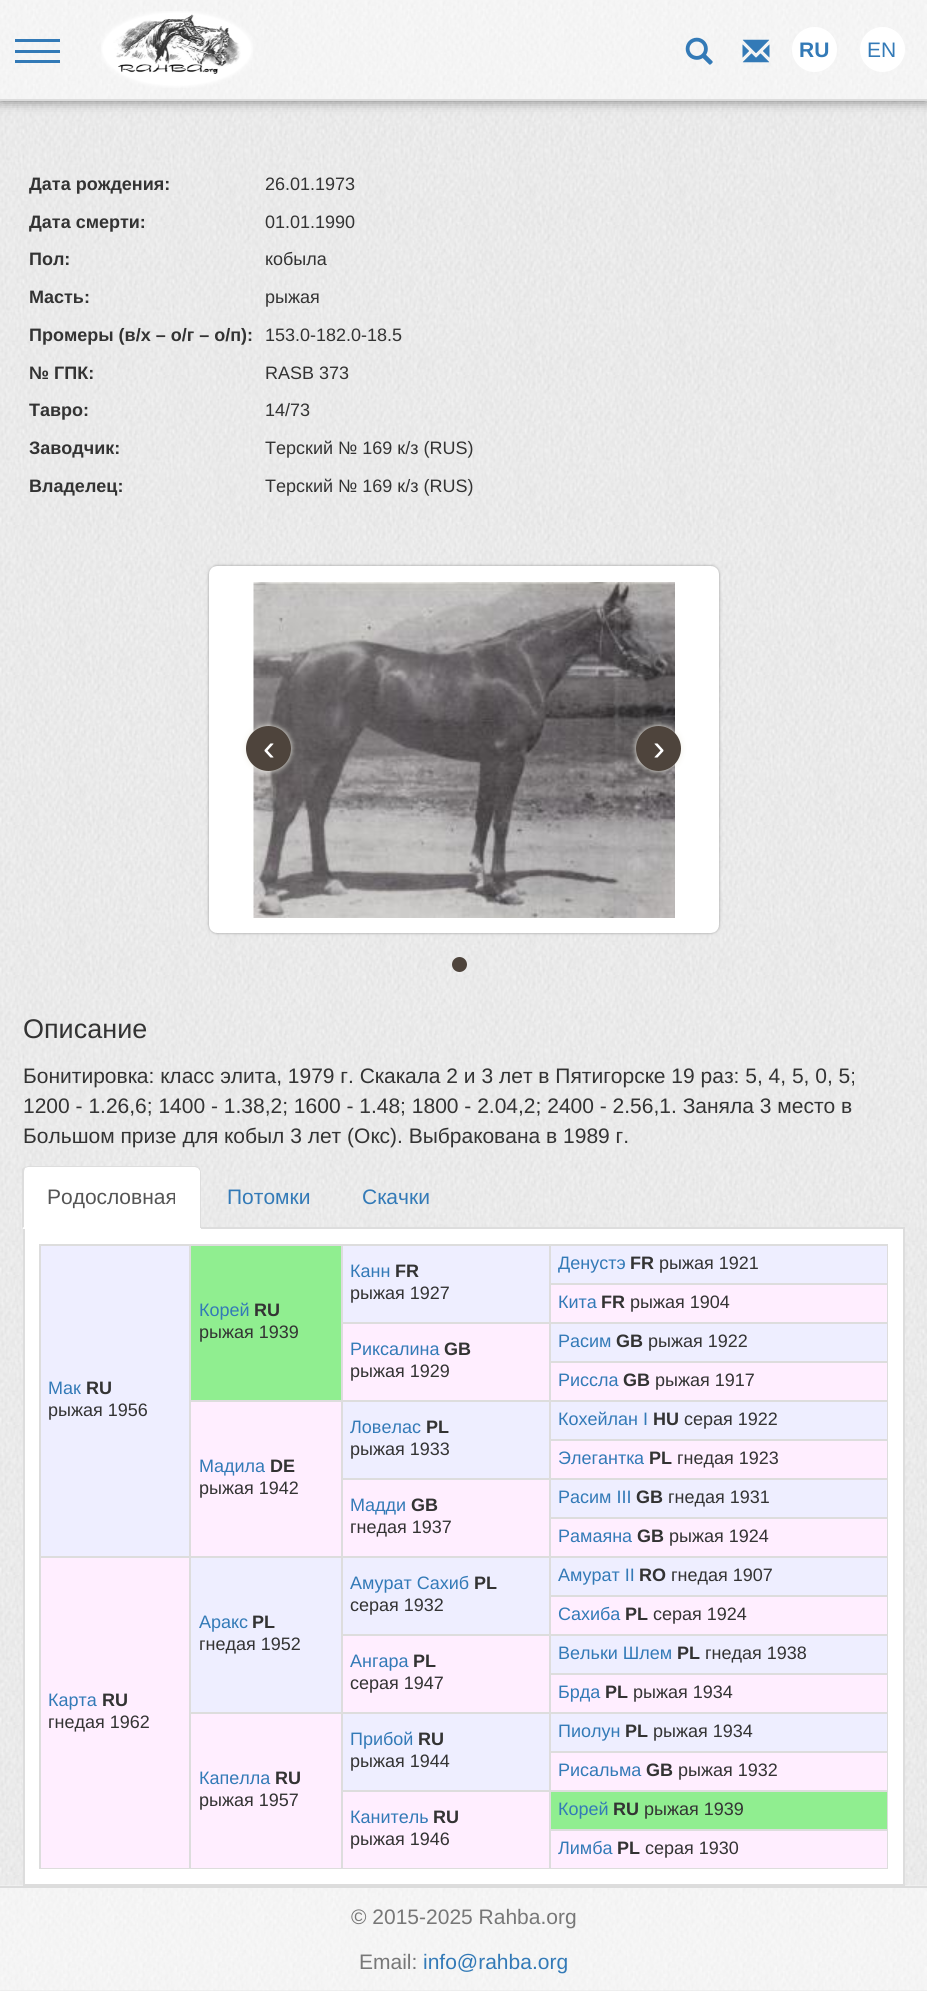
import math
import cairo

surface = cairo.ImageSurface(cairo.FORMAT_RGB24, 927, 1991)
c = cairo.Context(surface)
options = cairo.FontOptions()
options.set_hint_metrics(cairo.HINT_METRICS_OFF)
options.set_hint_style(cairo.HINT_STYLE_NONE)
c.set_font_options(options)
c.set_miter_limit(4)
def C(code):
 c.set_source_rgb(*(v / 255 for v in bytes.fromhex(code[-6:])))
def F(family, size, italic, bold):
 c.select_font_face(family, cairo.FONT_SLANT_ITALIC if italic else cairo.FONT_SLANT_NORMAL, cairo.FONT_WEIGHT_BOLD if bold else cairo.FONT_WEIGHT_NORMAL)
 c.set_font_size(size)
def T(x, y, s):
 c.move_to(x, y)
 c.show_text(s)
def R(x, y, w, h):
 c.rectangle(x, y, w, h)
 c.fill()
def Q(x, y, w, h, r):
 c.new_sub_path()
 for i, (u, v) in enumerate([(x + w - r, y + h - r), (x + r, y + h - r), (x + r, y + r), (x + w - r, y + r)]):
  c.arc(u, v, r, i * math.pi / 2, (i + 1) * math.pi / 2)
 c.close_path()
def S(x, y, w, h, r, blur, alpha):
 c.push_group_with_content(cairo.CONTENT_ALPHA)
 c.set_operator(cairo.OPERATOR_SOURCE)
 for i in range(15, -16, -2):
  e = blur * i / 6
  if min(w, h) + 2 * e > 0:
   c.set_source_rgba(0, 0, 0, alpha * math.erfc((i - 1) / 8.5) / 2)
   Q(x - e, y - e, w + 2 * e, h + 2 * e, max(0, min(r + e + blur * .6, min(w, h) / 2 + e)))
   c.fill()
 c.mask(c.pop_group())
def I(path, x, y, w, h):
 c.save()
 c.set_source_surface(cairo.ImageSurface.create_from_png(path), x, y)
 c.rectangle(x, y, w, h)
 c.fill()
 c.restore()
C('ffffff')
c.paint()
I('1.png',0,101,927,1785)
C('000000')
S(0,0,927,101,0,6,.5)
I('2.png',0,0,927,99)
C('dcdcdc')
R(0,99,927,2)
C('337ab7')
R(15,50,45,3)
R(15,39,45,3)
R(15,60,45,3)
I('3.png',101,11,152,77)
I('4.png',685,37,28,28)
I('5.png',742,39,28,24)
C('ffffff')
c.arc(814.5,49.5,22.5,0,2 * math.pi)
c.fill()
F('Liberation Sans',21,0,1)
C('337ab7')
T(799,57,'RU')
C('ffffff')
c.new_path()
c.arc(882.5,49.5,22.5,0,2 * math.pi)
c.fill()
F('Liberation Sans',21,0,0)
C('337ab7')
T(867,57,'EN')
F('Liberation Sans',18,0,1)
C('333333')
T(29,190,'Дата рождения:')
F('Liberation Sans',18,0,0)
T(265,190,'26.01.1973')
F('Liberation Sans',18,0,1)
T(29,228,'Дата смерти:')
F('Liberation Sans',18,0,0)
T(265,228,'01.01.1990')
F('Liberation Sans',18,0,1)
T(29,265,'Пол:')
F('Liberation Sans',18,0,0)
T(265,265,'кобыла')
F('Liberation Sans',18,0,1)
T(29,303,'Масть:')
F('Liberation Sans',18,0,0)
T(265,303,'рыжая')
F('Liberation Sans',18,0,1)
T(29,341,'Промеры (в/х – о/г – о/п):')
F('Liberation Sans',18,0,0)
T(265,341,'153.0-182.0-18.5')
F('Liberation Sans',18,0,1)
T(29,379,'№ ГПК:')
F('Liberation Sans',18,0,0)
T(265,379,'RASB 373')
F('Liberation Sans',18,0,1)
T(29,416,'Тавро:')
F('Liberation Sans',18,0,0)
T(265,416,'14/73')
F('Liberation Sans',18,0,1)
T(29,454,'Заводчик:')
F('Liberation Sans',18,0,0)
T(265,454,'Терский № 169 к/з (RUS)')
F('Liberation Sans',18,0,1)
T(29,492,'Владелец:')
F('Liberation Sans',18,0,0)
T(265,492,'Терский № 169 к/з (RUS)')
C('999999')
S(209,566,510,367,8,1.5,1)
Q(216.5,573.5,495,352,.5)
C('ffffff')
c.set_line_width(15)
c.stroke()
R(224,581,480,337)
I('6.png',253,582,422,336)
C('f0efe7')
S(246,726,45,45,22.5,3,1)
C('4e443c')
c.arc(268.5,748.5,22.5,0,2 * math.pi)
c.fill()
F('Liberation Sans',36,0,0)
C('ffffff')
T(263,760,'‹')
C('f0efe7')
S(636,726,45,45,22.5,3,1)
C('4e443c')
c.arc(658.5,748.5,22.5,0,2 * math.pi)
c.fill()
C('ffffff')
T(653,760,'›')
C('4e443c')
c.new_path()
c.arc(459.5,964.5,7.5,0,2 * math.pi)
c.fill()
F('Liberation Sans',27,0,0)
C('333333')
T(23,1038,'Описание')
F('Liberation Sans',21,0,0)
T(23,1083,'Бонитировка: класс элита, 1979 г. Скакала 2 и 3 лет в Пятигорске 19 раз: 5, 4, 5, 0, 5;')
T(23,1113,'1200 - 1.26,6; 1400 - 1.38,2; 1600 - 1.48; 1800 - 2.04,2; 2400 - 2.56,1. Заняла 3 место в')
T(23,1143,'Большом призе для кобыл 3 лет (Окс). Выбракована в 1989 г.')
C('dddddd')
R(201,1227,704,2)
C('ffffff')
c.new_path()
c.move_to(29,1166)
c.line_to(195,1166)
c.curve_to(198.5,1166,201,1168.5,201,1172)
c.line_to(201,1229)
c.line_to(23,1229)
c.line_to(23,1172)
c.curve_to(23,1168.5,25.5,1166,29,1166)
c.close_path()
c.fill()
C('dddddd')
c.new_path()
c.move_to(28,1166)
c.line_to(24,1167)
c.line_to(25,1168)
c.line_to(28,1167)
c.line_to(195,1167)
c.line_to(198,1168)
c.line_to(199,1167)
c.curve_to(198,1166,196,1166,195,1166)
c.close_path()
c.fill()
c.new_path()
c.move_to(199,1167)
c.curve_to(200,1168,201,1170,201,1172)
c.line_to(201,1228)
c.line_to(200,1228)
c.line_to(200,1227)
c.line_to(200,1171)
c.line_to(198,1168)
c.close_path()
c.fill()
c.new_path()
c.move_to(22,1169)
c.line_to(24,1167)
c.line_to(25,1168)
c.curve_to(25,1169,24,1170,24,1172)
c.line_to(24,1227)
c.line_to(22,1228)
c.close_path()
c.fill()
C('555555')
T(47,1204,'Родословная')
C('337ab7')
T(227,1204,'Потомки')
T(362,1204,'Скачки')
C('ffffff')
R(25,1229,878,655)
C('e7e7e7')
R(0,1990,927,1)
I('7.png',0,1885,927,106)
C('dddddd')
R(903,1229,2,657)
R(23,1884,882,2)
R(23,1229,2,657)
R(39,1244,849,2)
R(887,1244,1,625)
R(39,1868,849,1)
R(39,1244,2,625)
C('eeeeff')
R(343,1246,206,76)
F('Liberation Sans',18,0,0)
C('337ab7')
T(350,1277,'Канн')
F('Liberation Sans',18,0,1)
C('333333')
T(395,1277,'FR')
F('Liberation Sans',18,0,0)
T(350,1299,'рыжая 1927')
C('eeeeff')
R(551,1246,336,37)
C('337ab7')
T(558,1269,'Денустэ')
F('Liberation Sans',18,0,1)
C('333333')
T(630,1269,'FR')
F('Liberation Sans',18,0,0)
T(659,1269,'рыжая 1921')
C('90ee90')
R(191,1246,150,154)
C('337ab7')
T(199,1316,'Корей')
F('Liberation Sans',18,0,1)
C('333333')
T(254,1316,'RU')
F('Liberation Sans',18,0,0)
T(199,1338,'рыжая 1939')
C('eeeeff')
R(41,1246,148,310)
C('337ab7')
T(48,1394,'Мак')
F('Liberation Sans',18,0,1)
C('333333')
T(86,1394,'RU')
F('Liberation Sans',18,0,0)
T(48,1416,'рыжая 1956')
C('ffeeff')
R(551,1285,336,37)
C('dddddd')
R(549,1283,339,2)
R(549,1322,339,2)
R(549,1361,339,2)
R(549,1400,339,2)
R(549,1439,339,2)
R(549,1478,339,2)
R(549,1517,339,2)
R(549,1556,339,2)
R(549,1595,339,2)
R(549,1634,339,2)
R(549,1673,339,2)
R(549,1712,339,2)
R(549,1751,339,2)
R(549,1790,339,2)
R(549,1829,339,2)
R(549,1829,2,40)
R(549,1790,2,40)
R(341,1790,210,2)
R(549,1751,2,40)
R(549,1712,2,40)
R(341,1712,210,2)
R(549,1673,2,40)
R(549,1634,2,40)
R(341,1634,210,2)
R(549,1595,2,40)
R(549,1556,2,40)
R(341,1556,210,2)
R(549,1517,2,40)
R(549,1478,2,40)
R(341,1478,210,2)
R(549,1439,2,40)
R(549,1400,2,40)
R(341,1400,210,2)
R(549,1361,2,40)
R(549,1322,2,40)
R(341,1322,210,2)
R(549,1244,2,79)
C('337ab7')
T(558,1308,'Кита')
F('Liberation Sans',18,0,1)
C('333333')
T(601,1308,'FR')
F('Liberation Sans',18,0,0)
T(630,1308,'рыжая 1904')
C('ffeeff')
R(343,1324,206,76)
C('dddddd')
R(341,1790,2,79)
R(341,1712,2,79)
R(189,1712,153,2)
R(341,1634,2,79)
R(341,1556,2,79)
R(189,1556,153,2)
R(341,1478,2,79)
R(341,1400,2,79)
R(189,1400,153,2)
R(341,1244,2,157)
C('337ab7')
T(350,1355,'Риксалина')
F('Liberation Sans',18,0,1)
C('333333')
T(444,1355,'GB')
F('Liberation Sans',18,0,0)
T(350,1377,'рыжая 1929')
C('eeeeff')
R(551,1324,336,37)
C('337ab7')
T(558,1347,'Расим')
F('Liberation Sans',18,0,1)
C('333333')
T(616,1347,'GB')
F('Liberation Sans',18,0,0)
T(648,1347,'рыжая 1922')
C('ffeeff')
R(551,1363,336,37)
C('337ab7')
T(558,1386,'Риссла')
F('Liberation Sans',18,0,1)
C('333333')
T(623,1386,'GB')
F('Liberation Sans',18,0,0)
T(655,1386,'рыжая 1917')
C('eeeeff')
R(343,1402,206,76)
C('337ab7')
T(350,1433,'Ловелас')
F('Liberation Sans',18,0,1)
C('333333')
T(426,1433,'PL')
F('Liberation Sans',18,0,0)
T(350,1455,'рыжая 1933')
C('eeeeff')
R(551,1402,336,37)
C('337ab7')
T(558,1425,'Кохейлан I')
F('Liberation Sans',18,0,1)
C('333333')
T(653,1425,'HU')
F('Liberation Sans',18,0,0)
T(684,1425,'серая 1922')
C('ffeeff')
R(191,1402,150,154)
C('dddddd')
R(189,1712,2,157)
R(189,1556,2,157)
R(39,1556,152,2)
R(189,1244,2,313)
C('337ab7')
T(199,1472,'Мадила')
F('Liberation Sans',18,0,1)
C('333333')
T(270,1472,'DE')
F('Liberation Sans',18,0,0)
T(199,1494,'рыжая 1942')
C('ffeeff')
R(551,1441,336,37)
C('337ab7')
T(558,1464,'Элегантка')
F('Liberation Sans',18,0,1)
C('333333')
T(649,1464,'PL')
F('Liberation Sans',18,0,0)
T(677,1464,'гнедая 1923')
C('ffeeff')
R(343,1480,206,76)
C('337ab7')
T(350,1511,'Мадди')
F('Liberation Sans',18,0,1)
C('333333')
T(411,1511,'GB')
F('Liberation Sans',18,0,0)
T(350,1533,'гнедая 1937')
C('eeeeff')
R(551,1480,336,37)
C('337ab7')
T(558,1503,'Расим III')
F('Liberation Sans',18,0,1)
C('333333')
T(636,1503,'GB')
F('Liberation Sans',18,0,0)
T(668,1503,'гнедая 1931')
C('ffeeff')
R(551,1519,336,37)
C('337ab7')
T(558,1542,'Рамаяна')
F('Liberation Sans',18,0,1)
C('333333')
T(637,1542,'GB')
F('Liberation Sans',18,0,0)
T(669,1542,'рыжая 1924')
C('eeeeff')
R(343,1558,206,76)
C('337ab7')
T(350,1589,'Амурат Сахиб')
F('Liberation Sans',18,0,1)
C('333333')
T(474,1589,'PL')
F('Liberation Sans',18,0,0)
T(350,1611,'серая 1932')
C('eeeeff')
R(551,1558,336,37)
C('337ab7')
T(558,1581,'Амурат II')
F('Liberation Sans',18,0,1)
C('333333')
T(639,1581,'RO')
F('Liberation Sans',18,0,0)
T(671,1581,'гнедая 1907')
C('eeeeff')
R(191,1558,150,154)
C('337ab7')
T(199,1628,'Аракс')
F('Liberation Sans',18,0,1)
C('333333')
T(252,1628,'PL')
F('Liberation Sans',18,0,0)
T(199,1650,'гнедая 1952')
C('ffeeff')
R(41,1558,148,310)
C('337ab7')
T(48,1706,'Карта')
F('Liberation Sans',18,0,1)
C('333333')
T(102,1706,'RU')
F('Liberation Sans',18,0,0)
T(48,1728,'гнедая 1962')
C('ffeeff')
R(551,1597,336,37)
C('337ab7')
T(558,1620,'Сахиба')
F('Liberation Sans',18,0,1)
C('333333')
T(625,1620,'PL')
F('Liberation Sans',18,0,0)
T(653,1620,'серая 1924')
C('ffeeff')
R(343,1636,206,76)
C('337ab7')
T(350,1667,'Ангара')
F('Liberation Sans',18,0,1)
C('333333')
T(413,1667,'PL')
F('Liberation Sans',18,0,0)
T(350,1689,'серая 1947')
C('eeeeff')
R(551,1636,336,37)
C('337ab7')
T(558,1659,'Вельки Шлем')
F('Liberation Sans',18,0,1)
C('333333')
T(677,1659,'PL')
F('Liberation Sans',18,0,0)
T(705,1659,'гнедая 1938')
C('ffeeff')
R(551,1675,336,37)
C('337ab7')
T(558,1698,'Брда')
F('Liberation Sans',18,0,1)
C('333333')
T(605,1698,'PL')
F('Liberation Sans',18,0,0)
T(633,1698,'рыжая 1934')
C('eeeeff')
R(343,1714,206,76)
C('337ab7')
T(350,1745,'Прибой')
F('Liberation Sans',18,0,1)
C('333333')
T(418,1745,'RU')
F('Liberation Sans',18,0,0)
T(350,1767,'рыжая 1944')
C('eeeeff')
R(551,1714,336,37)
C('337ab7')
T(558,1737,'Пиолун')
F('Liberation Sans',18,0,1)
C('333333')
T(625,1737,'PL')
F('Liberation Sans',18,0,0)
T(653,1737,'рыжая 1934')
C('ffeeff')
R(191,1714,150,154)
C('337ab7')
T(199,1784,'Капелла')
F('Liberation Sans',18,0,1)
C('333333')
T(275,1784,'RU')
F('Liberation Sans',18,0,0)
T(199,1806,'рыжая 1957')
C('ffeeff')
R(551,1753,336,37)
C('337ab7')
T(558,1776,'Рисальма')
F('Liberation Sans',18,0,1)
C('333333')
T(646,1776,'GB')
F('Liberation Sans',18,0,0)
T(678,1776,'рыжая 1932')
C('ffeeff')
R(343,1792,206,76)
C('337ab7')
T(350,1823,'Канитель')
F('Liberation Sans',18,0,1)
C('333333')
T(433,1823,'RU')
F('Liberation Sans',18,0,0)
T(350,1845,'рыжая 1946')
C('90ee90')
R(551,1792,336,37)
C('337ab7')
T(558,1815,'Корей')
F('Liberation Sans',18,0,1)
C('333333')
T(613,1815,'RU')
F('Liberation Sans',18,0,0)
T(644,1815,'рыжая 1939')
C('ffeeff')
R(551,1831,336,37)
C('337ab7')
T(558,1854,'Лимба')
F('Liberation Sans',18,0,1)
C('333333')
T(617,1854,'PL')
F('Liberation Sans',18,0,0)
T(645,1854,'серая 1930')
C('dcdcdc')
R(0,1886,927,2)
F('Liberation Sans',21,0,0)
C('777777')
T(351,1924,'© 2015-2025 Rahba.org')
T(359,1969,'Email:')
C('337ab7')
T(423,1969,'info@rahba.org')
surface.write_to_png('o.png')
